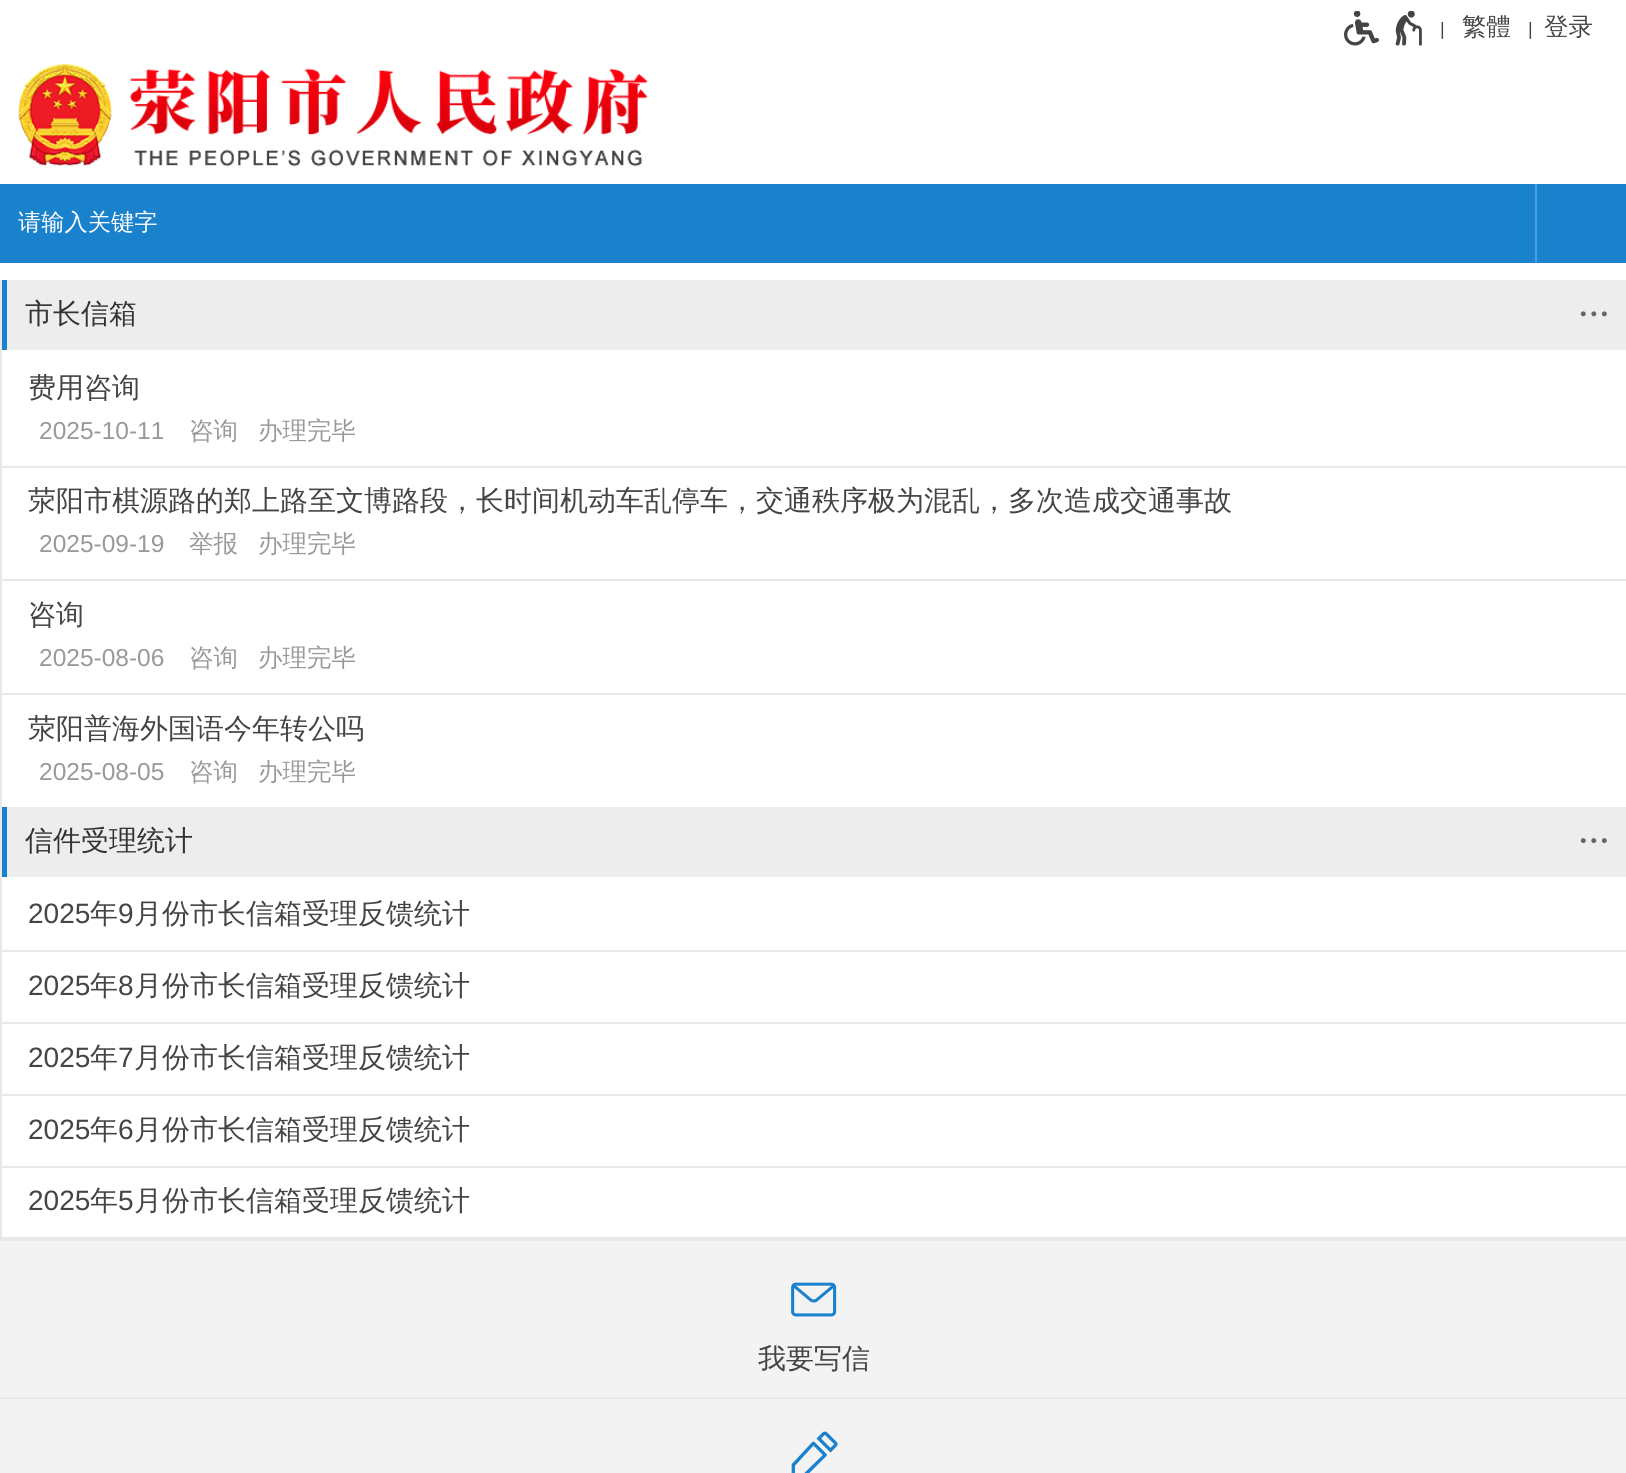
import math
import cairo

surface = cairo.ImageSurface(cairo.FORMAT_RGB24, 1626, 1473)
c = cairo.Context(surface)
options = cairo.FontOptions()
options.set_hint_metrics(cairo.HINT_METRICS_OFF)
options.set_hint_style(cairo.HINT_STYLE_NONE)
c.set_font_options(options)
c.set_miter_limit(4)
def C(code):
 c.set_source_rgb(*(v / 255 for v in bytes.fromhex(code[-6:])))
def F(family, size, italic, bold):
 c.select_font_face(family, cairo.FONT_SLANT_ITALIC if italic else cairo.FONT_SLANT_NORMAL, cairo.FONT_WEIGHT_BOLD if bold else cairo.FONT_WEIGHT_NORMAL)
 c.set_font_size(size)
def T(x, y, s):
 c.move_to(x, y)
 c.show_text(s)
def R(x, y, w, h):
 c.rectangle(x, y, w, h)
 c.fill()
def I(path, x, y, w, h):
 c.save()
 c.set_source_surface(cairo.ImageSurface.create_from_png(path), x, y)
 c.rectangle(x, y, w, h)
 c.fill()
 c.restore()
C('ffffff')
c.paint()
I('1.png',1344,11,35,35)
I('2.png',1395,11,27,35)
F('Liberation Sans',18,0,0)
C('444444')
T(1440,35,'|')
F('WenQuanYi Zen Hei Medium',24.5,0,0)
T(1462,35,'繁體')
F('Liberation Sans',18,0,0)
T(1528,35,'|')
F('WenQuanYi Zen Hei Medium',24.5,0,0)
T(1544,35,'登录')
I('3.png',18,64,630,103)
C('1a81cc')
R(0,184,1626,79)
F('WenQuanYi Zen Hei Medium',23.25,0,0)
C('ffffff')
T(18,230,'请输入关键字')
C('4c9dd8')
R(1535,184,2,79)
C('e8e8e8')
R(0,1237,1626,4)
R(0,280,2,959)
C('ededed')
R(7,280,1619,70)
C('1a81cc')
R(2,280,5,70)
F('WenQuanYi Zen Hei Medium',28,0,0)
C('333333')
T(25,323,'市长信箱')
I('4.png',1580,311,27,6)
C('444444')
T(28,397,'费用咨询')
F('Liberation Sans',24.5,0,0)
C('999999')
T(39,439,'2025-10-11')
F('WenQuanYi Zen Hei Medium',24.5,0,0)
T(189,439,'咨询')
T(258,439,'办理完毕')
C('e8e8e8')
R(2,466,1624,2)
F('WenQuanYi Zen Hei Medium',28,0,0)
C('444444')
T(28,510,'荥阳市棋源路的郑上路至文博路段，长时间机动车乱停车，交通秩序极为混乱，多次造成交通事故')
F('Liberation Sans',24.5,0,0)
C('999999')
T(39,552,'2025-09-19')
F('WenQuanYi Zen Hei Medium',24.5,0,0)
T(189,552,'举报')
T(258,552,'办理完毕')
C('e8e8e8')
R(2,579,1624,2)
F('WenQuanYi Zen Hei Medium',28,0,0)
C('444444')
T(28,624,'咨询')
F('Liberation Sans',24.5,0,0)
C('999999')
T(39,666,'2025-08-06')
F('WenQuanYi Zen Hei Medium',24.5,0,0)
T(189,666,'咨询')
T(258,666,'办理完毕')
C('e8e8e8')
R(2,693,1624,2)
F('WenQuanYi Zen Hei Medium',28,0,0)
C('444444')
T(28,738,'荥阳普海外国语今年转公吗')
F('Liberation Sans',24.5,0,0)
C('999999')
T(39,780,'2025-08-05')
F('WenQuanYi Zen Hei Medium',24.5,0,0)
T(189,780,'咨询')
T(258,780,'办理完毕')
C('ededed')
R(7,807,1619,70)
C('1a81cc')
R(2,807,5,70)
F('WenQuanYi Zen Hei Medium',28,0,0)
C('333333')
T(25,850,'信件受理统计')
I('5.png',1580,838,27,6)
F('Liberation Sans',28,0,0)
C('444444')
T(28,923,'2025')
F('WenQuanYi Zen Hei Medium',28,0,0)
T(90,923,'年')
F('Liberation Sans',28,0,0)
T(118,923,'9')
F('WenQuanYi Zen Hei Medium',28,0,0)
T(134,923,'月份市长信箱受理反馈统计')
C('e8e8e8')
R(2,950,1624,2)
F('Liberation Sans',28,0,0)
C('444444')
T(28,995,'2025')
F('WenQuanYi Zen Hei Medium',28,0,0)
T(90,995,'年')
F('Liberation Sans',28,0,0)
T(118,995,'8')
F('WenQuanYi Zen Hei Medium',28,0,0)
T(134,995,'月份市长信箱受理反馈统计')
C('e8e8e8')
R(2,1022,1624,2)
F('Liberation Sans',28,0,0)
C('444444')
T(28,1067,'2025')
F('WenQuanYi Zen Hei Medium',28,0,0)
T(90,1067,'年')
F('Liberation Sans',28,0,0)
T(118,1067,'7')
F('WenQuanYi Zen Hei Medium',28,0,0)
T(134,1067,'月份市长信箱受理反馈统计')
C('e8e8e8')
R(2,1094,1624,2)
F('Liberation Sans',28,0,0)
C('444444')
T(28,1139,'2025')
F('WenQuanYi Zen Hei Medium',28,0,0)
T(90,1139,'年')
F('Liberation Sans',28,0,0)
T(118,1139,'6')
F('WenQuanYi Zen Hei Medium',28,0,0)
T(134,1139,'月份市长信箱受理反馈统计')
C('e8e8e8')
R(2,1166,1624,2)
F('Liberation Sans',28,0,0)
C('444444')
T(28,1210,'2025')
F('WenQuanYi Zen Hei Medium',28,0,0)
T(90,1210,'年')
F('Liberation Sans',28,0,0)
T(118,1210,'5')
F('WenQuanYi Zen Hei Medium',28,0,0)
T(134,1210,'月份市长信箱受理反馈统计')
C('f3f3f3')
R(0,1241,1626,232)
I('6.png',791,1282,46,35)
C('444444')
T(758,1368,'我要写信')
C('e8e8e8')
R(0,1397,1626,2)
I('7.png',791,1431,47,42)
surface.write_to_png('o.png')
